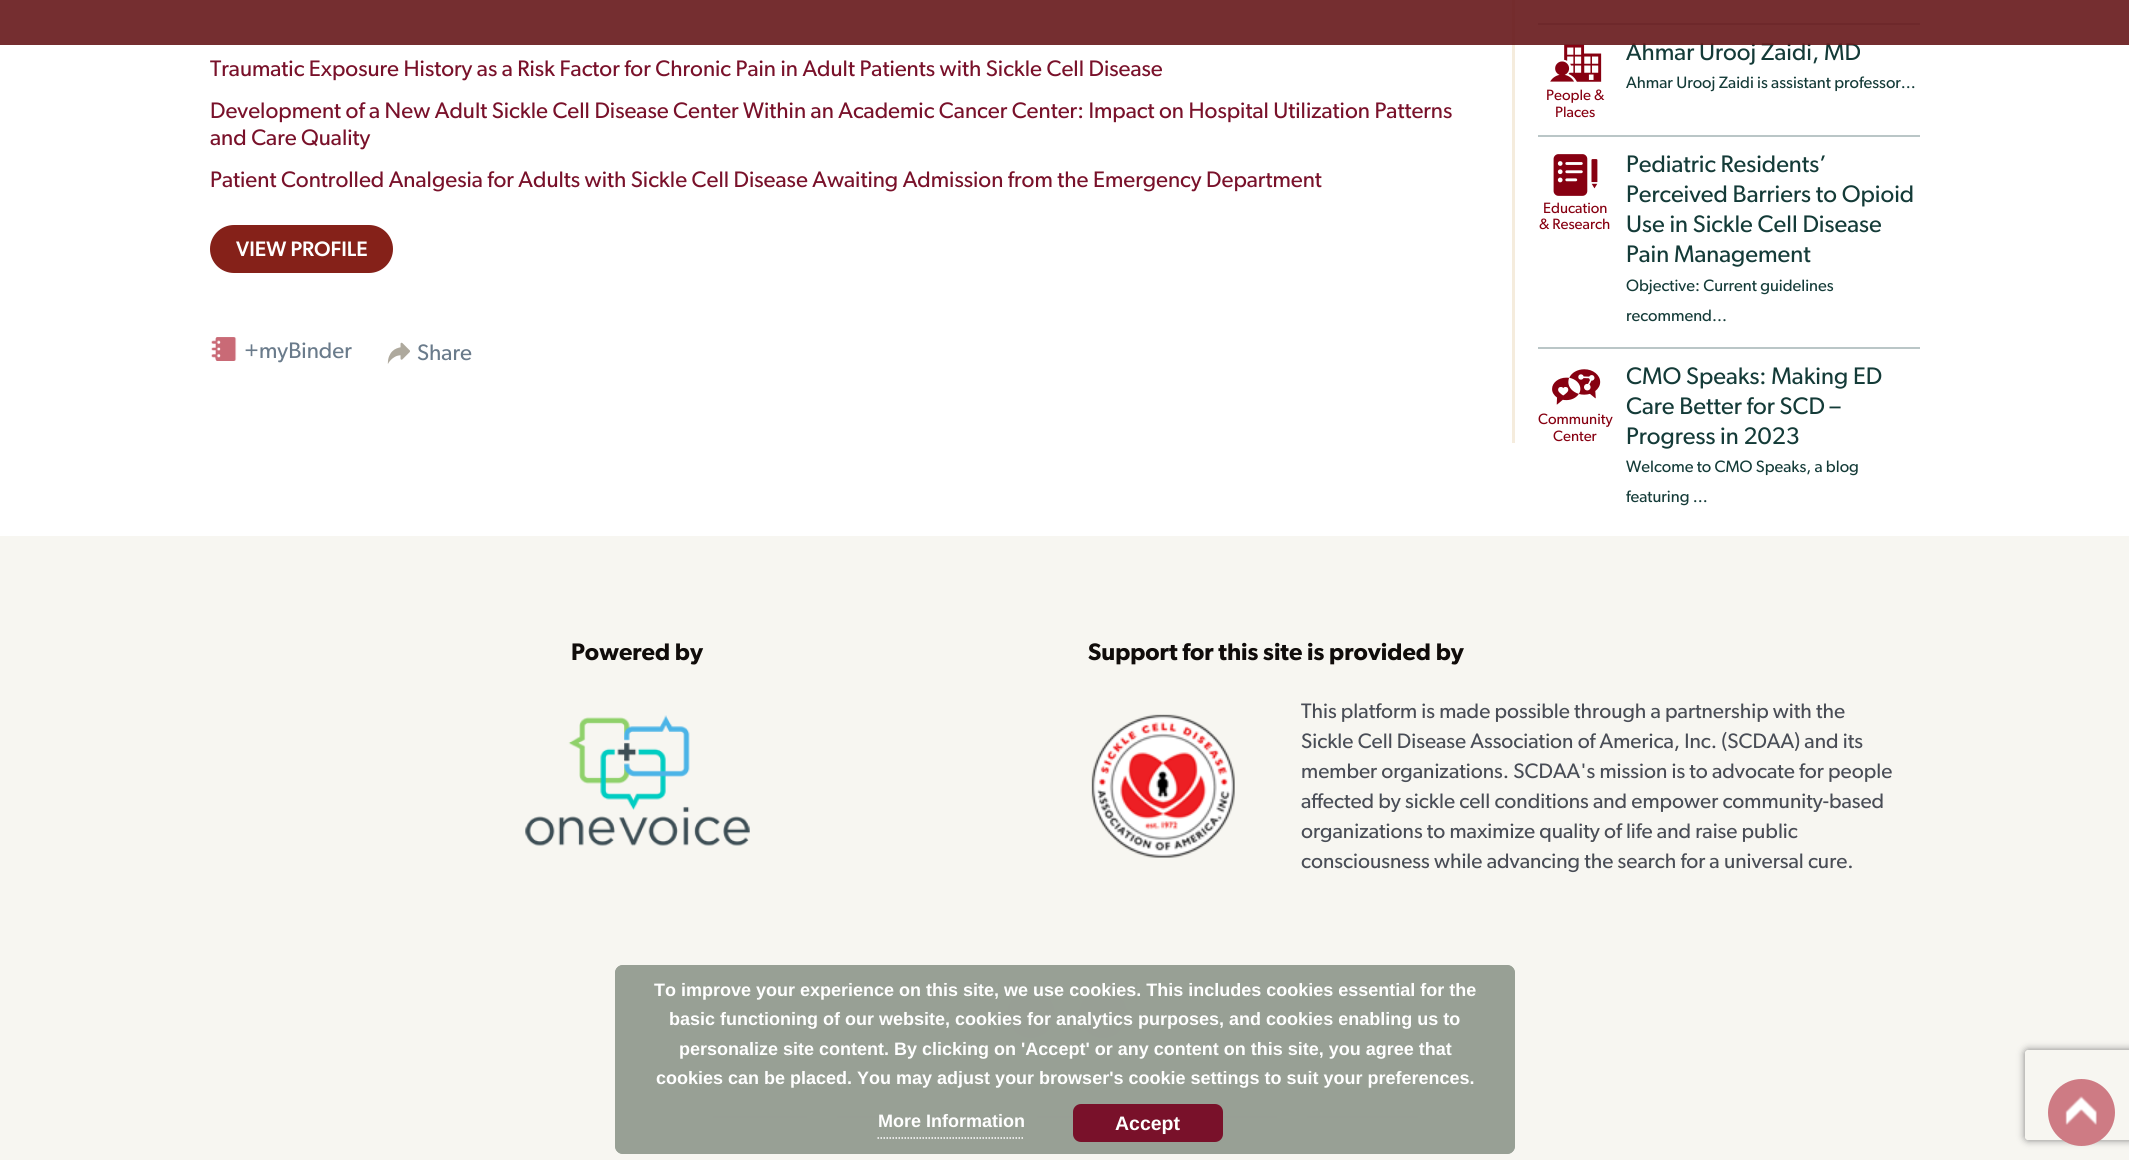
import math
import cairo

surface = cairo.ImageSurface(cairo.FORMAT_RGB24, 2129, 1160)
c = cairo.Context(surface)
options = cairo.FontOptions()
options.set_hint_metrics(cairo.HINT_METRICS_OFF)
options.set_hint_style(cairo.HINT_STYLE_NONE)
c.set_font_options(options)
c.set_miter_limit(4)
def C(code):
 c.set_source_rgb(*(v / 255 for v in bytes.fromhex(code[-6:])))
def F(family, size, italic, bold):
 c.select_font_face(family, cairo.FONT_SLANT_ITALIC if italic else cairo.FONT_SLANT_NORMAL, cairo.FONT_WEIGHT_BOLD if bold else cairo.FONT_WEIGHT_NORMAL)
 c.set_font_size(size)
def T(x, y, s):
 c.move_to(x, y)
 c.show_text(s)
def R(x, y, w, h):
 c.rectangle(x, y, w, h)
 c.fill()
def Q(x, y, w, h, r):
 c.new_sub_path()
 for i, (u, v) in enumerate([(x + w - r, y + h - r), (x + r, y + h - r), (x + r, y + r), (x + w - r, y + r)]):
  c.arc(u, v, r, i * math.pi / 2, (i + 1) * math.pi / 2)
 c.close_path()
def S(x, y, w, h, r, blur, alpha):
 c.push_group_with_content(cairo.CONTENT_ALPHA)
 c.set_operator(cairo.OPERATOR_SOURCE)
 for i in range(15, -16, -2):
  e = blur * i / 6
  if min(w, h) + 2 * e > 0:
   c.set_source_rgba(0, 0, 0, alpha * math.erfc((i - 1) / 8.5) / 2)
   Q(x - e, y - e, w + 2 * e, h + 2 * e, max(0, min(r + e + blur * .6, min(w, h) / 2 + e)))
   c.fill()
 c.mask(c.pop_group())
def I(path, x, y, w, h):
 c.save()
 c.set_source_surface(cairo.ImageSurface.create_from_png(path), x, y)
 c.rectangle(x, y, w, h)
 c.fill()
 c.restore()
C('ffffff')
c.paint()
C('f5ecdd')
R(1512,0,3,443)
C('bac6c7')
R(1538,23,382,2)
F('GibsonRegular',24,0,0)
C('143b38')
T(1626,60,'Ahmar Urooj Zaidi, MD')
I('3.png',1550,44,52,38)
c.set_source_rgba(0.4,0.094,0.102,0.9)
R(0,0,2129,45)
F('GibsonRegular',22.5,0,0)
C('79112a')
T(210,76,'Traumatic Exposure History as a Risk Factor for Chronic Pain in Adult Patients with Sickle Cell Disease')
T(210,118,'Development of a New Adult Sickle Cell Disease Center Within an Academic Cancer Center: Impact on Hospital Utilization Patterns')
T(210,145,'and Care Quality')
T(210,187,'Patient Controlled Analgesia for Adults with Sickle Cell Disease Awaiting Admission from the Emergency Department')
C('852119')
Q(211.5,226.5,180,45,22.5)
c.fill_preserve()
c.set_line_width(3)
c.stroke()
F('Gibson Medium',21,0,0)
C('ffffff')
T(236,256,'VIEW PROFILE')
I('1.png',211,337,26,24)
F('GibsonRegular',22.5,0,0)
C('6a7b8b')
T(244,358,'+myBinder')
I('2.png',387,342,23,22)
T(417,360,'Share')
C('bac6c7')
R(1538,135,382,2)
F('GibsonRegular',16.5,0,0)
C('143b38')
T(1626,88,'Ahmar Urooj Zaidi is assistant professor...')
F('GibsonRegular',15,0,0)
C('870011')
T(1546,100,'People &')
T(1555,117,'Places')
C('bac6c7')
R(1538,347,382,2)
I('4.png',1553,154,45,42)
C('870011')
T(1543,213,'Education')
T(1539,229,'& Research')
F('GibsonRegular',24,0,0)
C('143b38')
T(1626,172,'Pediatric Residents’')
T(1626,202,'Perceived Barriers to Opioid')
T(1626,232,'Use in Sickle Cell Disease')
T(1626,262,'Pain Management')
F('GibsonRegular',16.5,0,0)
T(1626,291,'Objective: Current guidelines')
T(1626,321,'recommend...')
I('5.png',1552,369,49,36)
F('GibsonRegular',15,0,0)
C('870011')
T(1538,424,'Community')
T(1553,441,'Center')
F('GibsonRegular',24,0,0)
C('143b38')
T(1626,384,'CMO Speaks: Making ED')
T(1626,414,'Care Better for SCD –')
T(1626,444,'Progress in 2023')
F('GibsonRegular',16.5,0,0)
T(1626,472,'Welcome to CMO Speaks, a blog')
T(1626,502,'featuring ...')
C('f7f6f1')
R(0,536,2129,624)
F('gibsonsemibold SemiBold',24,0,0)
C('100c0a')
T(571,660,'Powered by')
I('6.png',525,715,225,131)
T(1088,660,'Support for this site is provided by')
I('7.png',1091,714,144,144)
F('GibsonRegular',21,0,0)
C('494d56')
T(1301,718,'This platform is made possible through a partnership with the')
T(1301,748,'Sickle Cell Disease Association of America, Inc. (SCDAA) and its')
T(1301,778,'member organizations. SCDAA\'s mission is to advocate for people')
T(1301,808,'affected by sickle cell conditions and empower community-based')
T(1301,838,'organizations to maximize quality of life and raise public')
T(1301,868,'consciousness while advancing the search for a universal cure.')
C('1da1f2')
c.new_path()
c.arc(959,1014,24,0,2 * math.pi)
c.fill()
C('4c68a1')
c.arc(1031,1014,24,0,2 * math.pi)
c.fill()
C('9d34b4')
c.arc(1103,1014,24,0,2 * math.pi)
c.fill()
C('3f3f3f')
R(713,1116,94,2)
R(837,1116,170,2)
R(1037,1116,36,2)
R(1223,1116,54,2)
R(1307,1116,111,2)
c.set_source_rgba(0.6,0.627,0.584,0.95)
Q(615,965,900,189,8)
c.fill()
c.new_path()
c.move_to(877.5,1138)
c.line_to(1024.5,1138)
C('ffffff')
c.set_line_width(1.5)
c.set_dash([1.5,1.5])
c.stroke()
Q(1074,1105,148,36,7)
C('79112a')
c.set_line_width(2)
c.set_dash([])
c.stroke()
c.set_source_rgba(0.6,0.627,0.584,0.95)
Q(615,965,900,189,8)
c.fill()
F('Liberation Sans',18,0,1)
C('ffffff')
T(654,996,'To improve your experience on this site, we use cookies. This includes cookies essential for the')
T(669,1025,'basic functioning of our website, cookies for analytics purposes, and cookies enabling us to')
T(679,1055,'personalize site content. By clicking on \'Accept\' or any content on this site, you agree that')
T(656,1084,'cookies can be placed. You may adjust your browser\'s cookie settings to suit your preferences.')
c.new_path()
c.move_to(877.5,1138)
c.line_to(1024.5,1138)
c.set_line_width(1.5)
c.set_dash([1.5,1.5])
c.stroke()
T(878,1127,'More Information')
C('79112a')
Q(1074,1105,148,36,7)
c.fill_preserve()
c.set_line_width(2)
c.set_dash([])
c.stroke()
F('Liberation Sans',19.5,0,1)
C('ffffff')
T(1115,1130,'Accept')
c.save()
c.set_fill_rule(cairo.FILL_RULE_EVEN_ODD)
c.new_path()
c.move_to(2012,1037)
c.line_to(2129,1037)
c.line_to(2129,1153)
c.line_to(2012,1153)
c.close_path()
c.move_to(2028,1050)
c.line_to(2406,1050)
c.curve_to(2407.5,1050,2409,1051.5,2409,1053)
c.line_to(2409,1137)
c.curve_to(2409,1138.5,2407.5,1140,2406,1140)
c.line_to(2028,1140)
c.curve_to(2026.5,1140,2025,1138.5,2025,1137)
c.line_to(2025,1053)
c.curve_to(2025,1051.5,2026.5,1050,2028,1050)
c.close_path()
c.clip()
C('808080')
S(2025,1050,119,90,3,4,1)
c.restore()
C('ce7b84')
c.arc(2081.5,1112.5,33.5,0,2 * math.pi)
c.fill()
I('8.png',2065,1096,32,29)
surface.write_to_png('o.png')
